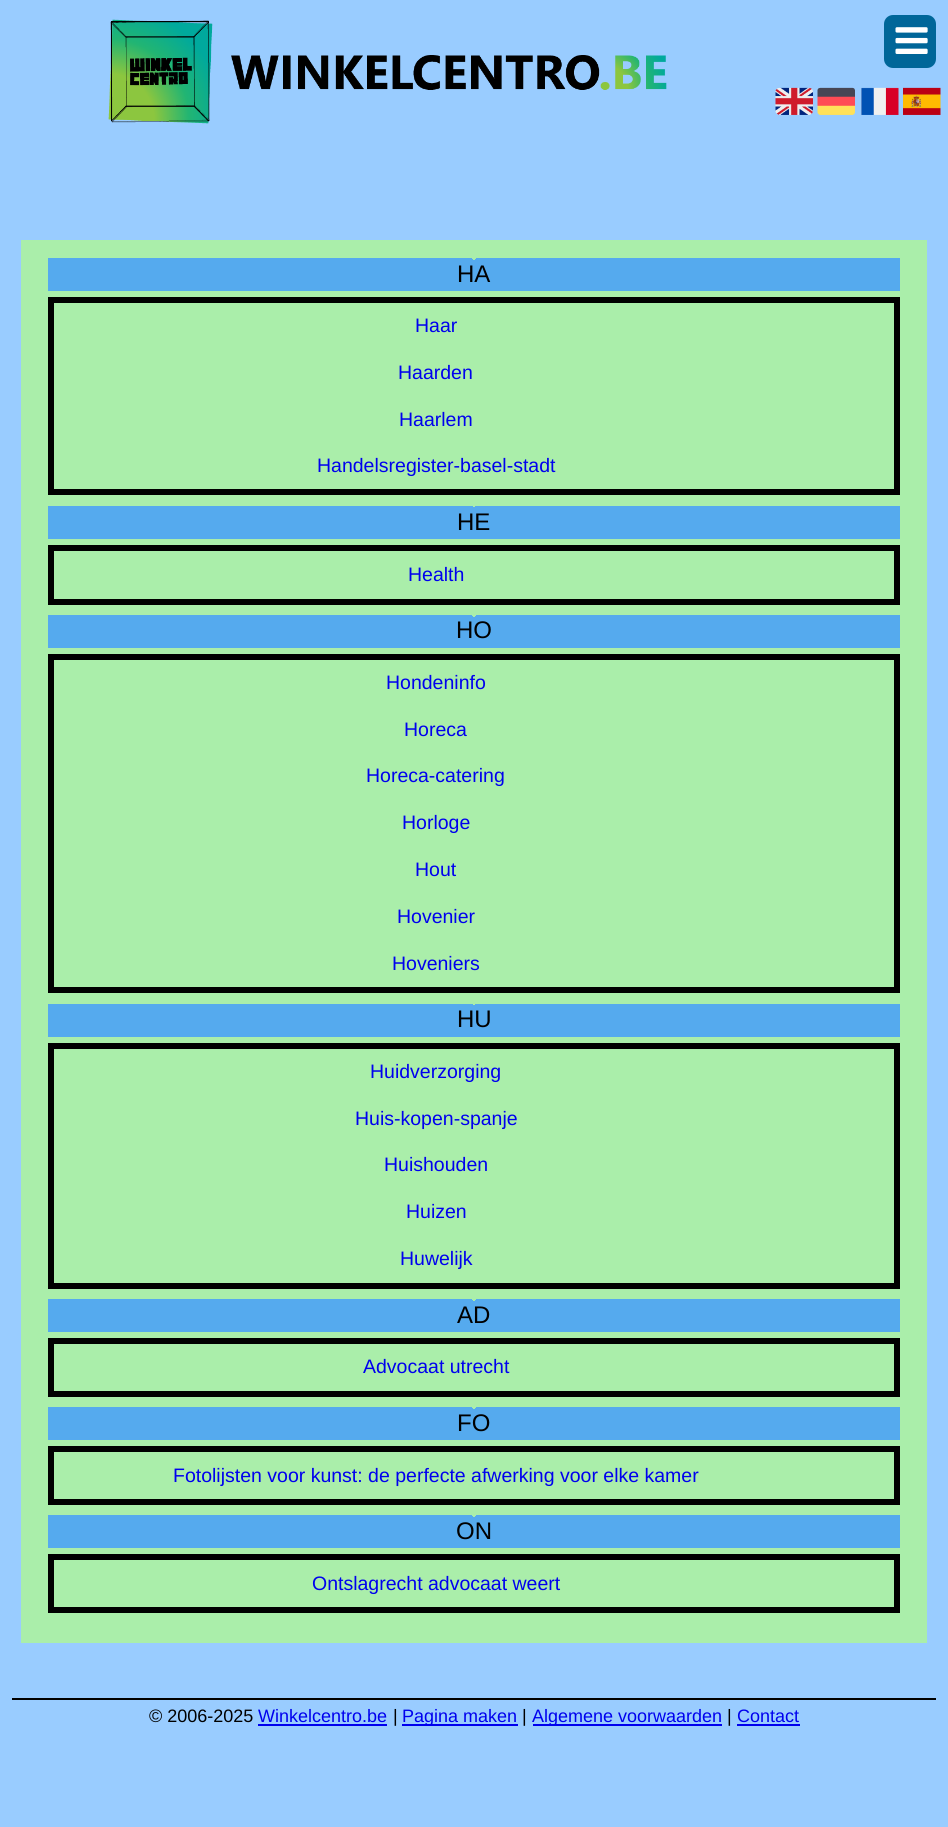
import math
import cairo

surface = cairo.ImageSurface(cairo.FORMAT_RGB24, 948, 1827)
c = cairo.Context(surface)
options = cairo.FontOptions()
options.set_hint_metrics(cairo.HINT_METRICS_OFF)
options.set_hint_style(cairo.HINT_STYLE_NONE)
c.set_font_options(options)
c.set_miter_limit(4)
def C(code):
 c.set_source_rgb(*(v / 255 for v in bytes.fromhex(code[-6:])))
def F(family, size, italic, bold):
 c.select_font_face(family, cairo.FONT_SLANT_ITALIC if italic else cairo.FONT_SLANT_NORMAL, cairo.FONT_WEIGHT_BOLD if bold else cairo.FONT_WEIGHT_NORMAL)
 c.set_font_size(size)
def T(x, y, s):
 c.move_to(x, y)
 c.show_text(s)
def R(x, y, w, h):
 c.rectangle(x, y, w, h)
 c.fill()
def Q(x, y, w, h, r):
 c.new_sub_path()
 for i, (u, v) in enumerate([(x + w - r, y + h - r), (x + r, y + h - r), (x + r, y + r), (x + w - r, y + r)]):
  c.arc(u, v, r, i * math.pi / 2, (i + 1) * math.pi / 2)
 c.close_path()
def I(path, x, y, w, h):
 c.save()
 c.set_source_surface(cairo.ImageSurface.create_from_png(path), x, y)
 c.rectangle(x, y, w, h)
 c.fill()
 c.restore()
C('99ccff')
c.paint()
I('1.png',108,19,559,105)
C('006699')
Q(884,15,52,53,9)
c.fill()
I('2.png',895,27,33,27)
I('3.png',775,87,38,28)
I('4.png',817,87,38,28)
I('5.png',861,87,38,28)
I('6.png',903,87,38,28)
C('aaeeaa')
R(21,240,906,1403)
gradient = cairo.LinearGradient(408,159,131,390)
gradient.add_color_stop_rgba(.04,0.667,0.933,0.667,1)
gradient.add_color_stop_rgba(.04,0.333,0.667,0.933,1)
c.set_source(gradient)
R(48,258,428,33)
gradient = cairo.LinearGradient(540,159,817,390)
gradient.add_color_stop_rgba(.04,0.333,0.667,0.933,0)
gradient.add_color_stop_rgba(.04,0.333,0.667,0.933,1)
c.set_source(gradient)
R(474,258,426,33)
F('Liberation Sans',24,0,0)
C('000000')
T(457,282,'HA')
c.rectangle(51,300,846,192)
c.set_line_width(6)
c.stroke()
F('Liberation Sans',19.5,0,0)
C('0000ee')
T(415,332,'Haar')
T(398,379,'Haarden')
T(399,426,'Haarlem')
T(317,472,'Handelsregister-basel-stadt')
gradient = cairo.LinearGradient(408,406,131,638)
gradient.add_color_stop_rgba(.04,0.667,0.933,0.667,1)
gradient.add_color_stop_rgba(.04,0.333,0.667,0.933,1)
c.set_source(gradient)
R(48,506,427,33)
gradient = cairo.LinearGradient(540,406,817,638)
gradient.add_color_stop_rgba(.04,0.333,0.667,0.933,0)
gradient.add_color_stop_rgba(.04,0.333,0.667,0.933,1)
c.set_source(gradient)
R(474,506,426,33)
F('Liberation Sans',24,0,0)
C('000000')
T(457,530,'HE')
c.rectangle(51,548,846,54)
c.stroke()
F('Liberation Sans',19.5,0,0)
C('0000ee')
T(408,581,'Health')
gradient = cairo.LinearGradient(408,516,131,747)
gradient.add_color_stop_rgba(.04,0.667,0.933,0.667,1)
gradient.add_color_stop_rgba(.04,0.333,0.667,0.933,1)
c.set_source(gradient)
R(48,615,428,33)
gradient = cairo.LinearGradient(540,516,817,747)
gradient.add_color_stop_rgba(.04,0.333,0.667,0.933,0)
gradient.add_color_stop_rgba(.04,0.333,0.667,0.933,1)
c.set_source(gradient)
R(474,615,426,33)
F('Liberation Sans',24,0,0)
C('000000')
T(456,638,'HO')
c.rectangle(51,657,846,333)
c.stroke()
F('Liberation Sans',19.5,0,0)
C('0000ee')
T(386,689,'Hondeninfo')
T(404,736,'Horeca')
T(366,782,'Horeca-catering')
T(402,829,'Horloge')
T(415,876,'Hout')
T(397,923,'Hovenier')
T(392,970,'Hoveniers')
gradient = cairo.LinearGradient(408,904,131,1136)
gradient.add_color_stop_rgba(.04,0.667,0.933,0.667,1)
gradient.add_color_stop_rgba(.04,0.333,0.667,0.933,1)
c.set_source(gradient)
R(48,1004,427,33)
gradient = cairo.LinearGradient(540,904,817,1136)
gradient.add_color_stop_rgba(.04,0.333,0.667,0.933,0)
gradient.add_color_stop_rgba(.04,0.333,0.667,0.933,1)
c.set_source(gradient)
R(474,1004,426,33)
F('Liberation Sans',24,0,0)
C('000000')
T(457,1027,'HU')
c.rectangle(51,1046,846,240)
c.stroke()
F('Liberation Sans',19.5,0,0)
C('0000ee')
T(370,1078,'Huidverzorging')
T(355,1125,'Huis-kopen-spanje')
T(384,1171,'Huishouden')
T(406,1218,'Huizen')
T(400,1265,'Huwelijk')
gradient = cairo.LinearGradient(408,1200,131,1431)
gradient.add_color_stop_rgba(.04,0.667,0.933,0.667,1)
gradient.add_color_stop_rgba(.04,0.333,0.667,0.933,1)
c.set_source(gradient)
R(48,1299,428,33)
gradient = cairo.LinearGradient(540,1200,817,1431)
gradient.add_color_stop_rgba(.04,0.333,0.667,0.933,0)
gradient.add_color_stop_rgba(.04,0.333,0.667,0.933,1)
c.set_source(gradient)
R(474,1299,426,33)
F('Liberation Sans',24,0,0)
C('000000')
T(457,1323,'AD')
c.rectangle(51,1341,846,53)
c.stroke()
F('Liberation Sans',19.5,0,0)
C('0000ee')
T(363,1373,'Advocaat utrecht')
gradient = cairo.LinearGradient(408,1308,131,1539)
gradient.add_color_stop_rgba(.04,0.667,0.933,0.667,1)
gradient.add_color_stop_rgba(.04,0.333,0.667,0.933,1)
c.set_source(gradient)
R(48,1407,428,33)
gradient = cairo.LinearGradient(540,1308,817,1539)
gradient.add_color_stop_rgba(.04,0.333,0.667,0.933,0)
gradient.add_color_stop_rgba(.04,0.333,0.667,0.933,1)
c.set_source(gradient)
R(474,1407,426,33)
F('Liberation Sans',24,0,0)
C('000000')
T(457,1431,'FO')
c.rectangle(51,1449,846,53)
c.stroke()
F('Liberation Sans',19.5,0,0)
C('0000ee')
T(173,1482,'Fotolijsten voor kunst: de perfecte afwerking voor elke kamer')
gradient = cairo.LinearGradient(408,1416,131,1647)
gradient.add_color_stop_rgba(.04,0.667,0.933,0.667,1)
gradient.add_color_stop_rgba(.04,0.333,0.667,0.933,1)
c.set_source(gradient)
R(48,1515,428,33)
gradient = cairo.LinearGradient(540,1416,817,1647)
gradient.add_color_stop_rgba(.04,0.333,0.667,0.933,0)
gradient.add_color_stop_rgba(.04,0.333,0.667,0.933,1)
c.set_source(gradient)
R(474,1515,426,33)
F('Liberation Sans',24,0,0)
C('000000')
T(456,1539,'ON')
c.rectangle(51,1557,846,53)
c.stroke()
F('Liberation Sans',19.5,0,0)
C('0000ee')
T(312,1590,'Ontslagrecht advocaat weert')
C('000000')
R(12,1698,924,2)
F('Liberation Sans',18,0,0)
T(149,1722,'© 2006-2025')
C('0000ee')
T(258,1722,'Winkelcentro.be')
R(258,1724,129,2)
C('000000')
T(393,1722,'|')
C('0000ee')
R(402,1724,116,2)
T(402,1722,'Pagina maken')
C('000000')
T(522,1722,'|')
C('0000ee')
R(533,1724,189,2)
T(532,1722,'Algemene voorwaarden')
C('000000')
T(727,1722,'|')
C('0000ee')
T(737,1722,'Contact')
R(737,1724,63,2)
surface.write_to_png('o.png')
